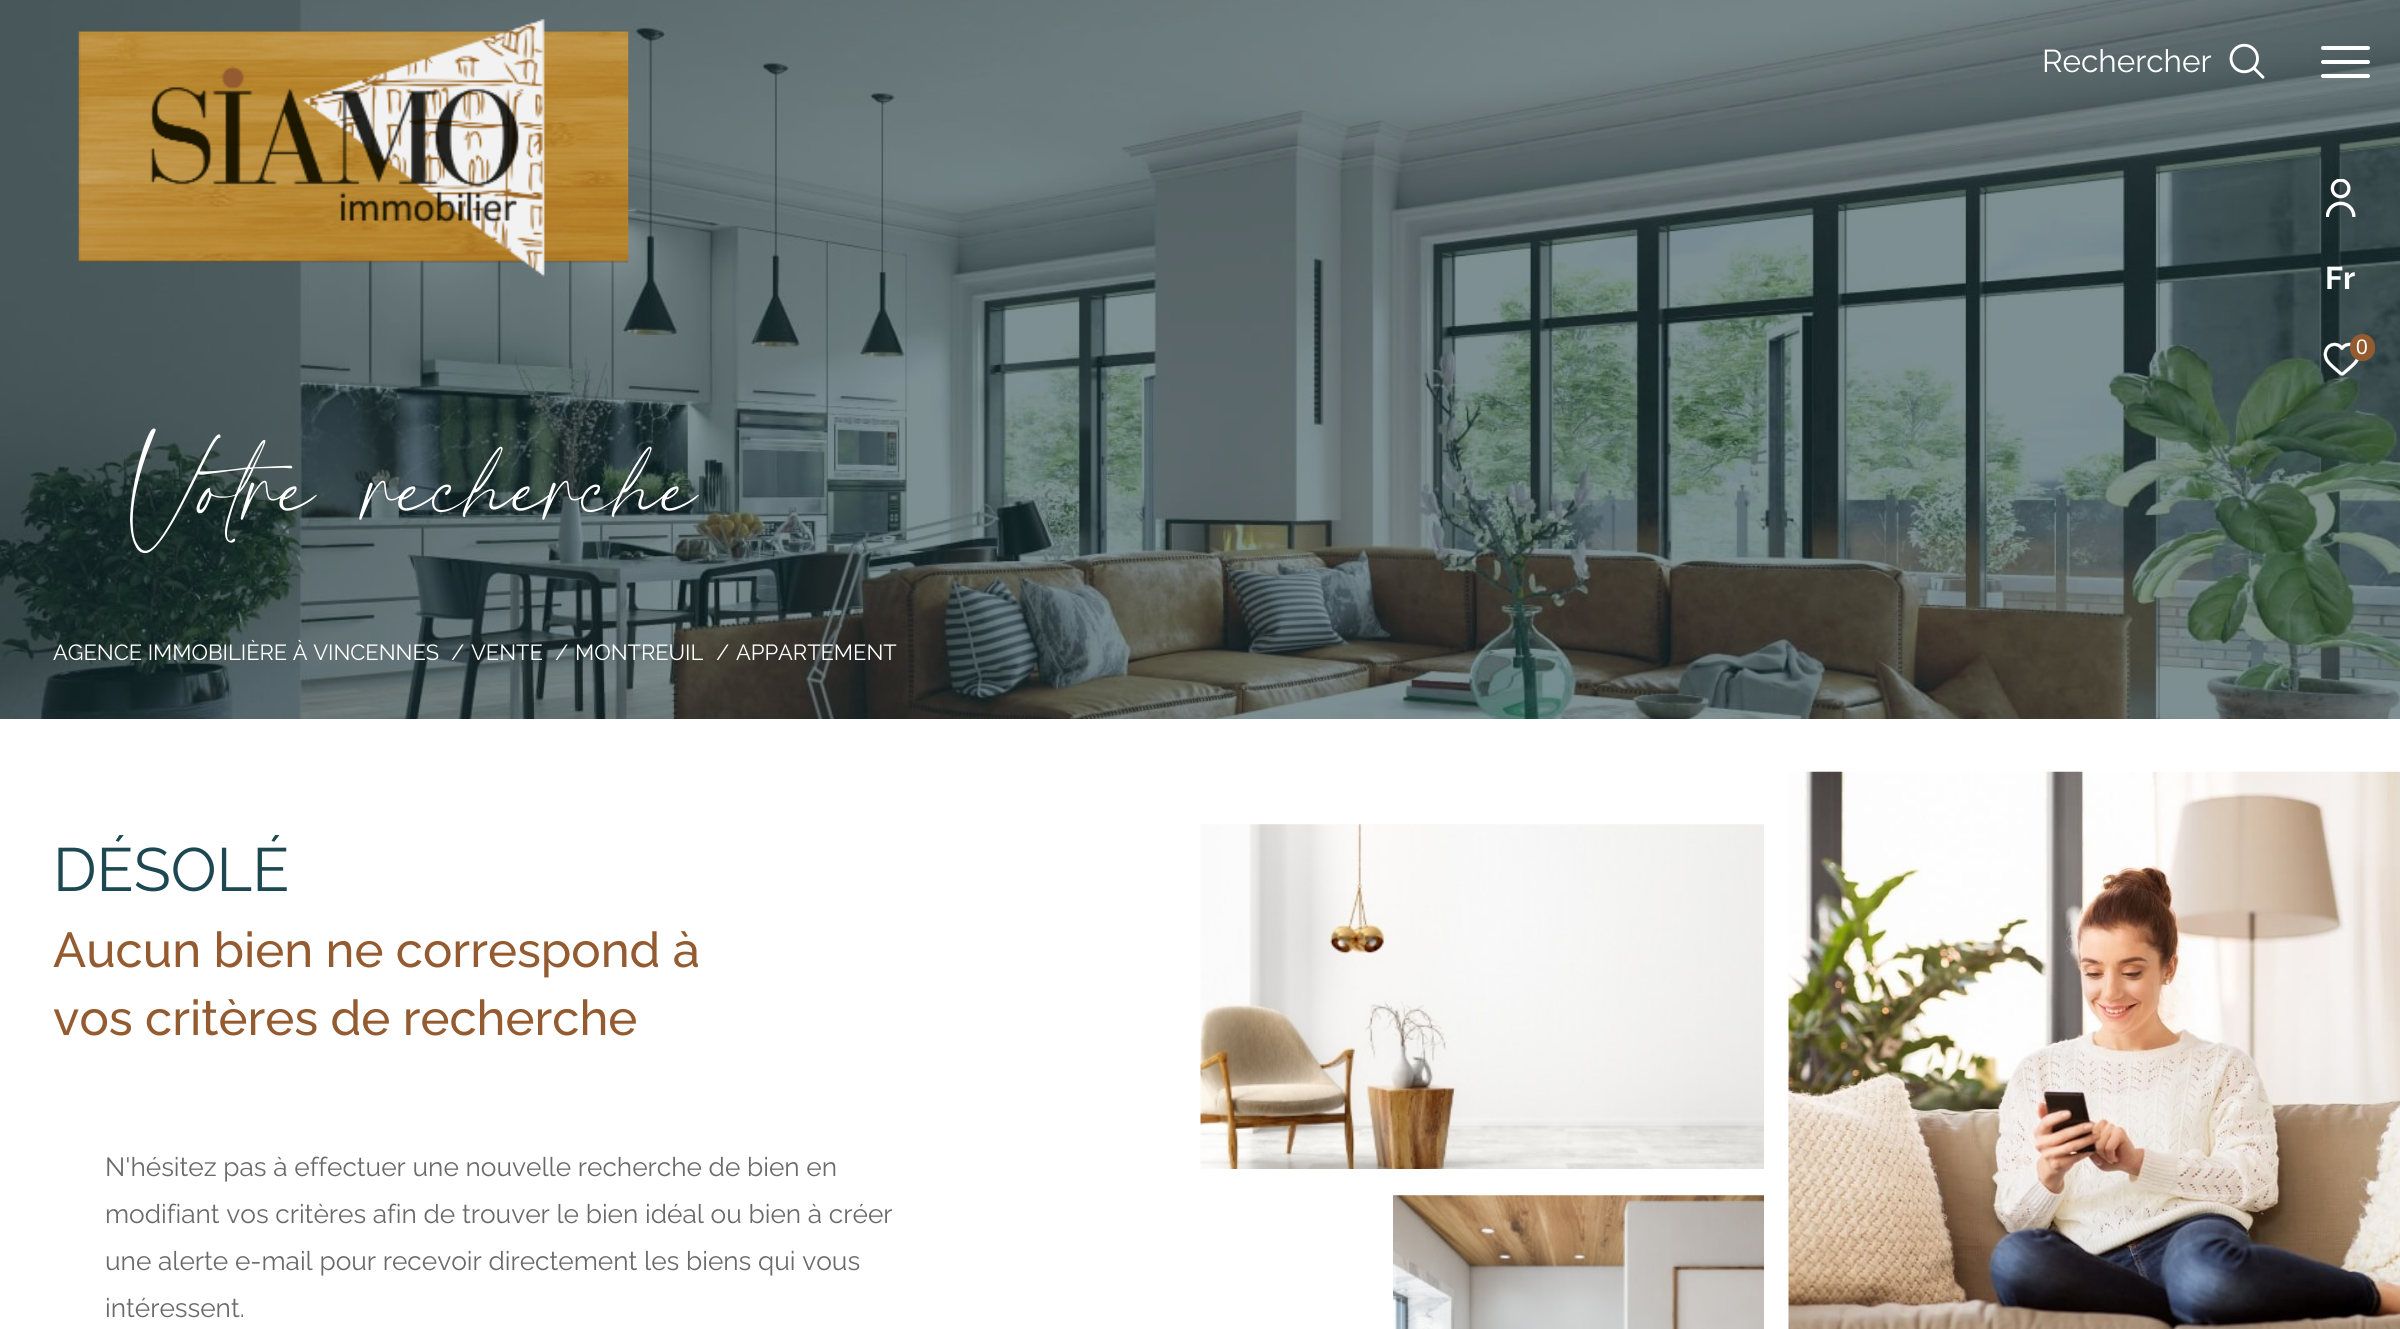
import math
import cairo

surface = cairo.ImageSurface(cairo.FORMAT_RGB24, 2400, 1329)
c = cairo.Context(surface)
options = cairo.FontOptions()
options.set_hint_metrics(cairo.HINT_METRICS_OFF)
options.set_hint_style(cairo.HINT_STYLE_NONE)
c.set_font_options(options)
c.set_miter_limit(4)
def C(code):
 c.set_source_rgb(*(v / 255 for v in bytes.fromhex(code[-6:])))
def F(family, size, italic, bold):
 c.select_font_face(family, cairo.FONT_SLANT_ITALIC if italic else cairo.FONT_SLANT_NORMAL, cairo.FONT_WEIGHT_BOLD if bold else cairo.FONT_WEIGHT_NORMAL)
 c.set_font_size(size)
def T(x, y, s):
 c.move_to(x, y)
 c.show_text(s)
def Q(x, y, w, h, r):
 c.new_sub_path()
 for i, (u, v) in enumerate([(x + w - r, y + h - r), (x + r, y + h - r), (x + r, y + r), (x + w - r, y + r)]):
  c.arc(u, v, r, i * math.pi / 2, (i + 1) * math.pi / 2)
 c.close_path()
def I(path, x, y, w, h):
 c.save()
 c.set_source_surface(cairo.ImageSurface.create_from_png(path), x, y)
 c.rectangle(x, y, w, h)
 c.fill()
 c.restore()
C('ffffff')
c.paint()
I('1.png',0,0,2400,719)
I('2.png',78,19,551,258)
F('Raleway Thin',31.5,0,0)
C('ffffff')
T(2042,72,'Rechercher')
I('3.png',2229,43,36,36)
Q(2321,60,49,4,2)
c.fill()
Q(2321,46,49,4,2)
c.fill()
Q(2321,74,49,4,2)
c.fill()
F('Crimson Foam',192.5,0,0)
T(130,550,'Votre recherche')
F('Raleway Thin',21.9,0,0)
T(53,660,'AGENCE IMMOBILIÈRE À VINCENNES')
T(451,660,'/')
T(471,660,'VENTE')
T(555,660,'/')
T(575,660,'MONTREUIL')
T(716,660,'/')
T(736,660,'APPARTEMENT')
I('4.png',2326,179,30,38)
F('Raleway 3 Thin',31.5,0,0)
T(2325,289,'Fr')
I('5.png',2323,342,36,34)
C('945b30')
Q(2350,334,25,27,12.5)
c.fill()
F('Liberation Sans',21,0,0)
C('ffffff')
T(2356,354,'0')
F('Raleway Thin',61,0,0)
C('1d4851')
T(53,891,'DÉSOLÉ')
F('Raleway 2 Thin',49,0,0)
C('945b30')
T(53,967,'Aucun bien ne correspond à')
T(53,1035,'vos critères de recherche')
F('Raleway Thin',26.25,0,0)
C('6a6a6a')
T(105,1176,'N\'hésitez pas à effectuer une nouvelle recherche de bien en')
T(105,1223,'modifiant vos critères afin de trouver le bien idéal ou bien à créer')
T(105,1270,'une alerte e-mail pour recevoir directement les biens qui vous')
T(105,1317,'intéressent.')
I('6.png',1200,824,564,345)
I('7.png',1393,1195,371,134)
I('8.png',1788,771,612,558)
surface.write_to_png('o.png')
